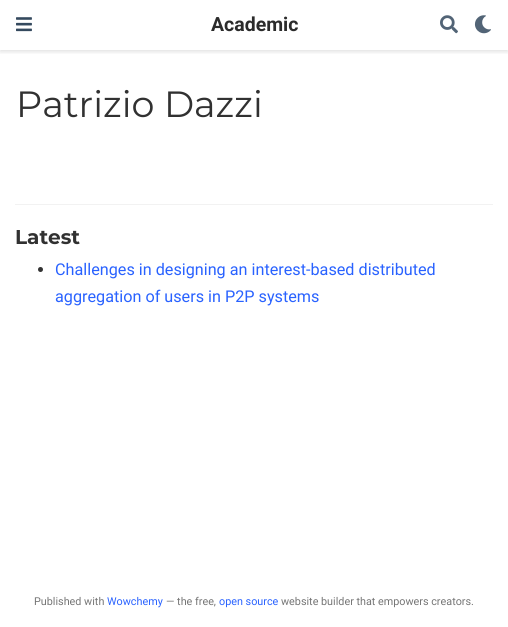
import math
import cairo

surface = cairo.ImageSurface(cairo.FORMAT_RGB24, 508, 627)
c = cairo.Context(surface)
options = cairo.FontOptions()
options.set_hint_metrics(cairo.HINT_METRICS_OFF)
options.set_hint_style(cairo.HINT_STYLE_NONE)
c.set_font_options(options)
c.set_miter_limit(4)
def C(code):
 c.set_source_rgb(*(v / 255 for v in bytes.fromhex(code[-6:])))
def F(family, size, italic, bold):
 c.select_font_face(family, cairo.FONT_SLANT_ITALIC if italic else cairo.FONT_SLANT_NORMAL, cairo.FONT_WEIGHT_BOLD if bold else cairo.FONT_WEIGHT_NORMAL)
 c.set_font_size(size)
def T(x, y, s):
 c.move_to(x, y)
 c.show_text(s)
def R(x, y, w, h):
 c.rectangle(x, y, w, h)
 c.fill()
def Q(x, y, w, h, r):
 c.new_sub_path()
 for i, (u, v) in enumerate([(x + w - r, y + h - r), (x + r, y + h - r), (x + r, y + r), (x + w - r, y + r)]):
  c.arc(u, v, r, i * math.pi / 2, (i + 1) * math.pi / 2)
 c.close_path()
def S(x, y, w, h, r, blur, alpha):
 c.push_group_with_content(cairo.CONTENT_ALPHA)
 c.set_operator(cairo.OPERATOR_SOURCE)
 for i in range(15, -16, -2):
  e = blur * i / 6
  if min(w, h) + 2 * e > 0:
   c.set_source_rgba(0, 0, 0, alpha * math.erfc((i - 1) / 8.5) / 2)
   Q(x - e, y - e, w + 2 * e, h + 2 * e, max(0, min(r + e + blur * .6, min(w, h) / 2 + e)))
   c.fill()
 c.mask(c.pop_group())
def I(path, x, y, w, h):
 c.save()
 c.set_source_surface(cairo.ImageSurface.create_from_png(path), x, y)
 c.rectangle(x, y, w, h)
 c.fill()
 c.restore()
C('ffffff')
c.paint()
c.save()
c.rectangle(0,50,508,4)
c.clip()
C('000000')
S(0,2,508,50,0,2,.11)
c.restore()
I('1.png',16,17,16,15)
F('Roboto',19.5,0,1)
C('2b2b2b')
T(211,31,'Academic')
I('2.png',440,15,18,19)
I('3.png',474,15,17,19)
F('Montserrat',36.5,0,0)
C('313131')
T(16,117,'Patrizio Dazzi')
C('f2f2f2')
R(15,204,478,1)
F('Montserrat',20,0,1)
C('313131')
T(15,244,'Latest')
C('333333')
c.new_path()
c.arc(40.5,269.5,2.5,0,2 * math.pi)
c.fill()
F('Roboto',16.2,0,0)
C('2962ff')
T(55,275,'Challenges in designing an interest-based distributed')
T(55,302,'aggregation of users in P2P systems')
F('Roboto',10.8,0,0)
C('757575')
T(34,605,'Published with')
C('2962ff')
T(107,605,'Wowchemy')
C('757575')
T(166,605,'— the free,')
C('2962ff')
T(219,605,'open source')
C('757575')
T(281,605,'website builder that empowers creators.')
surface.write_to_png('o.png')
